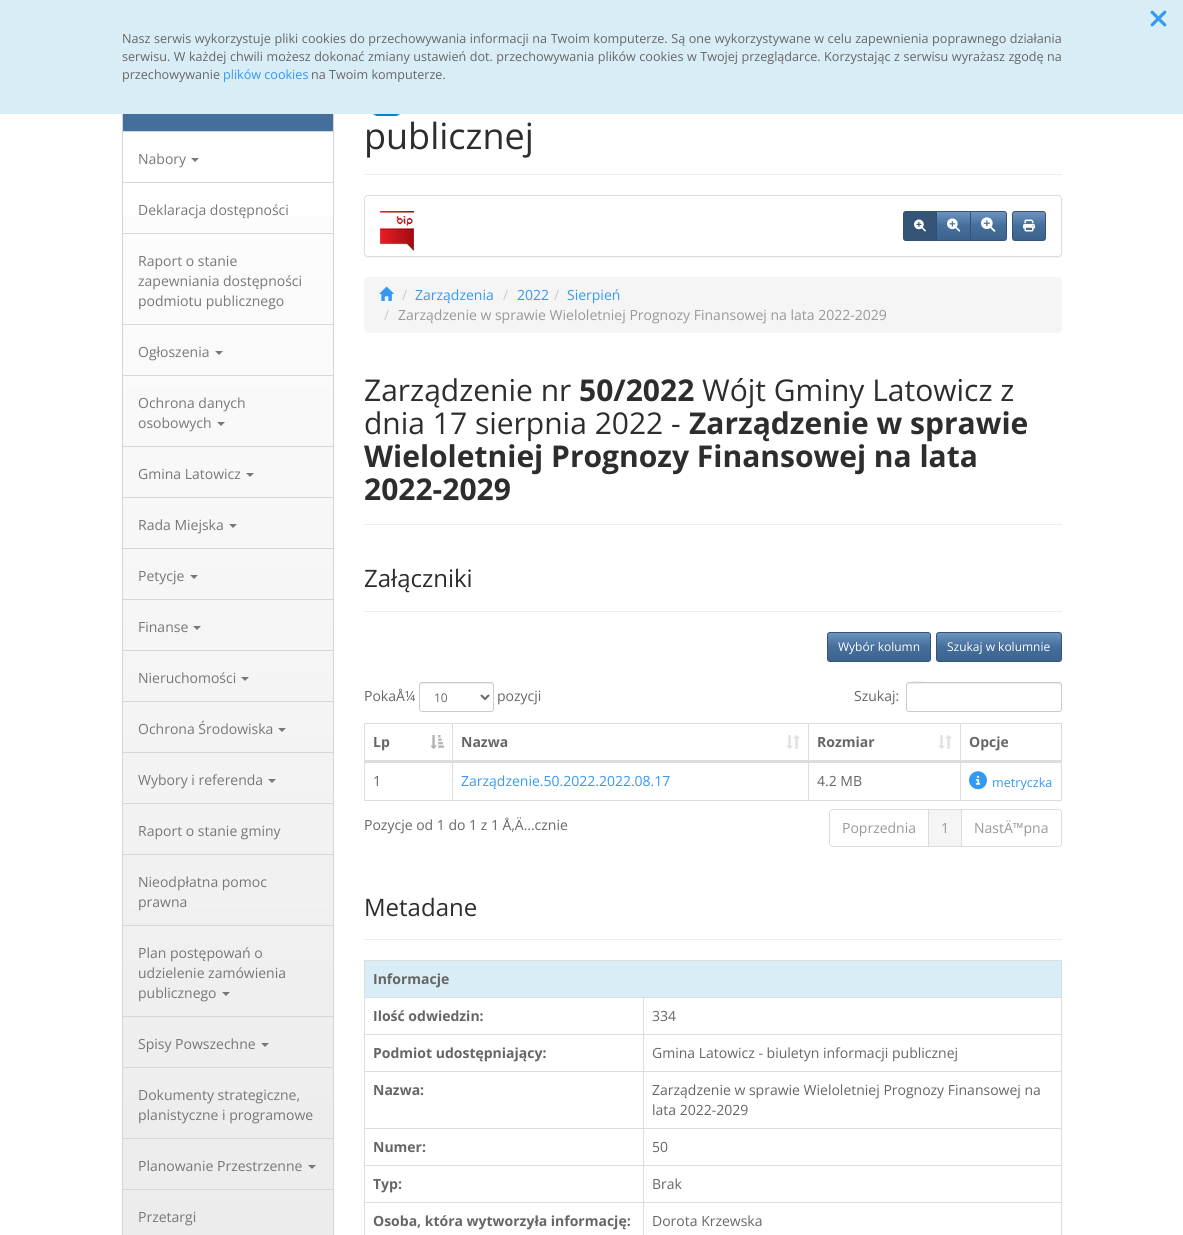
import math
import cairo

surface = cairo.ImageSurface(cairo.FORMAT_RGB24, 1183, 1235)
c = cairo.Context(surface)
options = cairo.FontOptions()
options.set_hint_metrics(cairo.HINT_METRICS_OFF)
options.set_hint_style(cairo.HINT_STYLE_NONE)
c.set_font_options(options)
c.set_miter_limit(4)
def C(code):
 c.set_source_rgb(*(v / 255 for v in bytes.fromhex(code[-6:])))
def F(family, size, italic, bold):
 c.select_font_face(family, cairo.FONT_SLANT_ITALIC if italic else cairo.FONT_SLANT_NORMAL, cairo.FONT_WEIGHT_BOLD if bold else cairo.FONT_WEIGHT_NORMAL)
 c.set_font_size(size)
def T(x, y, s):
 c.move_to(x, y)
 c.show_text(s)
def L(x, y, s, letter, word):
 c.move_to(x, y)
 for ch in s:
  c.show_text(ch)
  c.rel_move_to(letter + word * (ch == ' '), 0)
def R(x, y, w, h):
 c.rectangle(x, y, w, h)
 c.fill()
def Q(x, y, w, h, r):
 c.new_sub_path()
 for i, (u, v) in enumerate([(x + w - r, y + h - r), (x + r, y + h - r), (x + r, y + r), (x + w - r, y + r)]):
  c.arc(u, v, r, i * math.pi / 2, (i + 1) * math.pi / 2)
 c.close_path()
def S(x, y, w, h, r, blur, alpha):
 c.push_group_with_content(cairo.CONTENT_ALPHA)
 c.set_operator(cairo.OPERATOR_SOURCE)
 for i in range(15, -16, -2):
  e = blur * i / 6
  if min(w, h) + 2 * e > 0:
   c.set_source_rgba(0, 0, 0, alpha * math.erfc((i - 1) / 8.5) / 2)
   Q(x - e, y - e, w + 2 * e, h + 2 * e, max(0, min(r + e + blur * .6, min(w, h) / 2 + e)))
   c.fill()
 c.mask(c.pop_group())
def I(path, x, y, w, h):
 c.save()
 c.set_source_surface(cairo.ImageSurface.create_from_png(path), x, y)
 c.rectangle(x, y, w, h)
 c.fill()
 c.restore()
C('ffffff')
c.paint()
gradient = cairo.LinearGradient(228,71,228,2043)
gradient.add_color_stop_rgba(0,1,1,1,1)
gradient.add_color_stop_rgba(.5,0.933,0.933,0.933,1)
gradient.add_color_stop_rgba(1,0.894,0.894,0.894,1)
c.set_source(gradient)
R(123,216,210,1019)
c.rectangle(122.5,70.5,211,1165)
C('d5d5d5')
c.set_line_width(1)
c.stroke()
C('d9edf7')
R(0,0,1183,114)
I('1.png',1150,10,17,17)
F('Open Sans',12.6,0,0)
C('666666')
L(122,43,'Nasz serwis wykorzystuje pliki cookies do przechowywania informacji na Twoim komputerze. Są one wykorzystywane w celu zapewnienia poprawnego działania',0,.3)
L(122,61,'serwisu. W każdej chwili możesz dokonać zmiany ustawień dot. przechowywania plików cookies w Twojej przeglądarce. Korzystając z serwisu wyrażasz zgodę na',0,.25)
T(122,79,'przechowywanie')
C('3399f3')
T(223,79,'plików cookies')
C('666666')
T(311,79,'na Twoim komputerze.')
C('446e9b')
R(123,114,210,17)
C('d7d7d7')
R(123,131,210,1)
R(123,182,210,1)
F('Open Sans',14,0,0)
C('777777')
T(138,164,'Nabory')
c.new_path()
c.move_to(191,158)
c.line_to(199,158)
c.line_to(195,162)
c.close_path()
c.fill()
C('d7d7d7')
R(123,233,210,1)
C('777777')
T(138,215,'Deklaracja dostępności')
C('d7d7d7')
R(123,324,210,1)
C('777777')
T(138,266,'Raport o stanie')
T(138,286,'zapewniania dostępności')
T(138,306,'podmiotu publicznego')
C('d7d7d7')
R(123,375,210,1)
C('777777')
T(138,357,'Ogłoszenia')
c.new_path()
c.move_to(215,351)
c.line_to(223,351)
c.line_to(219,355)
c.close_path()
c.fill()
C('d7d7d7')
R(123,446,210,1)
C('777777')
T(138,408,'Ochrona danych')
T(138,428,'osobowych')
c.new_path()
c.move_to(217,422)
c.line_to(225,422)
c.line_to(221,426)
c.close_path()
c.fill()
C('d7d7d7')
R(123,497,210,1)
C('777777')
T(138,479,'Gmina Latowicz')
c.new_path()
c.move_to(246,473)
c.line_to(254,473)
c.line_to(250,477)
c.close_path()
c.fill()
C('d7d7d7')
R(123,548,210,1)
C('777777')
T(138,530,'Rada Miejska')
c.new_path()
c.move_to(229,524)
c.line_to(237,524)
c.line_to(233,528)
c.close_path()
c.fill()
C('d7d7d7')
R(123,599,210,1)
C('777777')
T(138,581,'Petycje')
c.new_path()
c.move_to(190,575)
c.line_to(198,575)
c.line_to(194,579)
c.close_path()
c.fill()
C('d7d7d7')
R(123,650,210,1)
C('777777')
T(138,632,'Finanse')
c.new_path()
c.move_to(193,626)
c.line_to(201,626)
c.line_to(197,630)
c.close_path()
c.fill()
C('d7d7d7')
R(123,701,210,1)
C('777777')
T(138,683,'Nieruchomości')
c.new_path()
c.move_to(241,677)
c.line_to(249,677)
c.line_to(245,681)
c.close_path()
c.fill()
C('d7d7d7')
R(123,752,210,1)
C('777777')
T(138,734,'Ochrona Środowiska')
c.new_path()
c.move_to(278,728)
c.line_to(286,728)
c.line_to(282,732)
c.close_path()
c.fill()
C('d7d7d7')
R(123,803,210,1)
C('777777')
T(138,785,'Wybory i referenda')
c.new_path()
c.move_to(268,779)
c.line_to(276,779)
c.line_to(272,783)
c.close_path()
c.fill()
C('d7d7d7')
R(123,854,210,1)
C('777777')
T(138,836,'Raport o stanie gminy')
C('d7d7d7')
R(123,925,210,1)
C('777777')
T(138,887,'Nieodpłatna pomoc')
T(138,907,'prawna')
C('d7d7d7')
R(123,1016,210,1)
C('777777')
T(138,958,'Plan postępowań o')
T(138,978,'udzielenie zamówienia')
T(138,998,'publicznego')
c.new_path()
c.move_to(222,992)
c.line_to(230,992)
c.line_to(226,996)
c.close_path()
c.fill()
C('d7d7d7')
R(123,1067,210,1)
C('777777')
T(138,1049,'Spisy Powszechne')
c.new_path()
c.move_to(261,1043)
c.line_to(269,1043)
c.line_to(265,1047)
c.close_path()
c.fill()
C('d7d7d7')
R(123,1138,210,1)
C('777777')
T(138,1100,'Dokumenty strategiczne,')
T(138,1120,'planistyczne i programowe')
C('d7d7d7')
R(123,1189,210,1)
C('777777')
T(138,1171,'Planowanie Przestrzenne')
c.new_path()
c.move_to(308,1165)
c.line_to(316,1165)
c.line_to(312,1169)
c.close_path()
c.fill()
T(138,1222,'Przetargi')
C('eeeeee')
R(364,174,698,1)
I('2.png',372,114,29,2)
F('Open Sans',36,0,0)
C('2d2d2d')
T(364,149,'publicznej')
C('000000')
S(364,196,698,62,4,.5,.05)
C('ffffff')
Q(364.5,195.5,697,61,3.5)
c.fill_preserve()
C('dddddd')
c.stroke()
I('3.png',380,211,34,40)
gradient = cairo.LinearGradient(954,212,954,240)
gradient.add_color_stop_rgba(0,0.427,0.58,0.749,1)
gradient.add_color_stop_rgba(.5,0.267,0.431,0.608,1)
gradient.add_color_stop_rgba(1,0.243,0.392,0.553,1)
c.set_source(gradient)
R(937,212,33,28)
c.rectangle(936.5,211.5,34,29)
C('345578')
c.stroke()
c.new_path()
c.move_to(906,211.5)
c.line_to(936.5,211.5)
c.line_to(936.5,240.5)
c.line_to(906,240.5)
c.curve_to(904.5,240.5,903.5,239.5,903.5,238)
c.line_to(903.5,214)
c.curve_to(903.5,212.5,904.5,211.5,906,211.5)
c.close_path()
c.fill_preserve()
C('315070')
c.stroke()
I('4.png',914,219,12,13)
I('5.png',947,218,14,14)
gradient = cairo.LinearGradient(989,212,989,240)
gradient.add_color_stop_rgba(0,0.427,0.58,0.749,1)
gradient.add_color_stop_rgba(.5,0.267,0.431,0.608,1)
gradient.add_color_stop_rgba(1,0.243,0.392,0.553,1)
c.set_source(gradient)
R(971,212,35,28)
c.new_path()
c.move_to(970.5,211.5)
c.line_to(1004,211.5)
c.curve_to(1005.5,211.5,1006.5,212.5,1006.5,214)
c.line_to(1006.5,238)
c.curve_to(1006.5,239.5,1005.5,240.5,1004,240.5)
c.line_to(970.5,240.5)
c.close_path()
C('345578')
c.stroke()
I('6.png',981,217,15,15)
gradient = cairo.LinearGradient(1029,212,1029,240)
gradient.add_color_stop_rgba(0,0.427,0.58,0.749,1)
gradient.add_color_stop_rgba(.5,0.267,0.431,0.608,1)
gradient.add_color_stop_rgba(1,0.243,0.392,0.553,1)
c.set_source(gradient)
R(1013,212,32,28)
Q(1012.5,211.5,33,29,2.5)
C('345578')
c.stroke()
I('7.png',1023,219,12,13)
C('f5f5f5')
Q(364,277,698,56,4)
c.fill()
I('8.png',379,286,15,15)
F('Open Sans',14,0,0)
C('cccccc')
T(402,300,'/')
C('3399f3')
T(415,300,'Zarządzenia')
C('cccccc')
T(503,300,'/')
C('3399f3')
T(517,300,'2022')
C('cccccc')
T(554,300,'/')
C('3399f3')
T(567,300,'Sierpień')
C('cccccc')
T(384,320,'/')
C('999999')
T(398,320,'Zarządzenie w sprawie Wieloletniej Prognozy Finansowej na lata 2022-2029')
C('eeeeee')
R(364,524,698,1)
F('Open Sans',30,0,0)
C('2d2d2d')
T(364,401,'Zarządzenie nr')
F('Open Sans',30,0,1)
T(579,401,'50/2022')
F('Open Sans',30,0,0)
T(702,401,'Wójt Gminy Latowicz z')
T(364,434,'dnia 17 sierpnia 2022 -')
F('Open Sans',30,0,1)
T(689,434,'Zarządzenie w sprawie')
T(364,467,'Wieloletniej Prognozy Finansowej na lata')
T(364,500,'2022-2029')
C('eeeeee')
R(364,611,698,1)
F('Open Sans',24,0,0)
C('2d2d2d')
T(364,587,'Załączniki')
gradient = cairo.LinearGradient(879,633,879,661)
gradient.add_color_stop_rgba(0,0.427,0.58,0.749,1)
gradient.add_color_stop_rgba(.5,0.267,0.431,0.608,1)
gradient.add_color_stop_rgba(1,0.243,0.392,0.553,1)
c.set_source(gradient)
R(828,633,102,28)
Q(827.5,632.5,103,29,2.5)
C('345578')
c.stroke()
F('Open Sans',12,0,0)
C('ffffff')
T(838,651,'Wybór kolumn')
gradient = cairo.LinearGradient(999,633,999,661)
gradient.add_color_stop_rgba(0,0.427,0.58,0.749,1)
gradient.add_color_stop_rgba(.5,0.267,0.431,0.608,1)
gradient.add_color_stop_rgba(1,0.243,0.392,0.553,1)
c.set_source(gradient)
R(937,633,124,28)
Q(936.5,632.5,125,29,2.5)
C('345578')
c.stroke()
C('ffffff')
T(947,651,'Szukaj w kolumnie')
F('Open Sans',14,0,0)
C('666666')
T(364,701,'PokaÅ¼')
C('ececec')
c.new_path()
c.move_to(422,684)
c.line_to(491,684)
c.curve_to(492,684,493,685,493,686)
c.curve_to(493,680,483,683,480,683)
c.line_to(434,683)
c.curve_to(430,683,420,680,420,686)
c.curve_to(420,685,421,684,422,684)
c.close_path()
c.fill()
Q(419.5,682.5,74,29,2.5)
C('cccccc')
c.stroke()
c.new_path()
c.move_to(481,695)
c.line_to(485,699)
c.line_to(489,695)
C('666666')
c.set_line_width(2)
c.stroke()
F('Open Sans',12,0,0)
T(434,702,'10')
F('Open Sans',14,0,0)
T(497,701,'pozycji')
T(854,701,'Szukaj:')
C('ececec')
c.new_path()
c.move_to(909,684)
c.line_to(1059,684)
c.curve_to(1060,684,1061,685,1061,686)
c.curve_to(1061,685,1061,684,1060,683)
c.line_to(934,683)
c.curve_to(932,683,907,677,907,686)
c.curve_to(907,685,908,684,909,684)
c.close_path()
c.fill()
Q(906.5,682.5,155,29,2.5)
C('cccccc')
c.set_line_width(1)
c.stroke()
c.rectangle(364.5,723.5,697,77)
C('dddddd')
c.stroke()
R(365,762,696,1)
R(452,724,1,76)
R(808,724,1,76)
R(960,724,1,76)
R(365,760,596,2)
F('Open Sans',14,0,1)
C('666666')
T(373,747,'Lp')
I('9.png',430,735,14,14)
T(461,747,'Nazwa')
I('10.png',786,735,14,14)
T(817,747,'Rozmiar')
I('10.png',938,735,14,14)
C('dddddd')
R(961,760,100,2)
C('666666')
T(969,747,'Opcje')
F('Open Sans',14,0,0)
T(373,786,'1')
C('3399f3')
T(461,786,'Zarządzenie.50.2022.2022.08.17')
C('666666')
T(817,786,'4.2 MB')
I('11.png',969,771,18,19)
F('Open Sans',12.6,0,0)
C('3399f3')
T(992,787,'metryczka')
F('Open Sans',14,0,0)
C('666666')
T(364,830,'Pozycje od 1 do 1 z 1 Å‚Ä…cznie')
c.new_path()
c.move_to(833,809.5)
c.line_to(928.5,809.5)
c.line_to(928.5,846.5)
c.line_to(833,846.5)
c.curve_to(831,846.5,829.5,845,829.5,843)
c.line_to(829.5,813)
c.curve_to(829.5,811,831,809.5,833,809.5)
c.close_path()
C('dddddd')
c.stroke()
C('999999')
T(842,833,'Poprzednia')
c.new_path()
c.move_to(961.5,809.5)
c.line_to(1058,809.5)
c.curve_to(1060,809.5,1061.5,811,1061.5,813)
c.line_to(1061.5,843)
c.curve_to(1061.5,845,1060,846.5,1058,846.5)
c.line_to(961.5,846.5)
c.close_path()
C('dddddd')
c.stroke()
C('f5f5f5')
c.rectangle(928.5,809.5,33,37)
c.fill_preserve()
C('dddddd')
c.stroke()
C('999999')
T(941,833,'1')
T(974,833,'NastÄ™pna')
C('eeeeee')
R(364,939,698,1)
F('Open Sans',24,0,0)
C('2d2d2d')
T(364,916,'Metadane')
C('dddddd')
R(364,960,698,1)
R(1061,960,1,275)
R(364,960,1,275)
C('d9edf7')
R(365,961,696,36)
F('Open Sans',14,0,1)
C('666666')
T(373,984,'Informacje')
C('dddddd')
R(643,997,419,1)
R(643,1034,419,1)
R(643,1071,419,1)
R(643,1128,419,1)
R(643,1165,419,1)
R(643,1202,419,1)
R(643,1202,1,33)
R(364,1202,280,1)
R(643,1165,1,38)
R(364,1165,280,1)
R(643,1128,1,38)
R(364,1128,280,1)
R(643,1071,1,58)
R(364,1071,280,1)
R(643,1034,1,38)
R(364,1034,280,1)
R(643,997,1,38)
R(364,997,280,1)
C('666666')
T(373,1021,'Ilość odwiedzin:')
F('Open Sans',14,0,0)
T(652,1021,'334')
F('Open Sans',14,0,1)
T(373,1058,'Podmiot udostępniający:')
F('Open Sans',14,0,0)
T(652,1058,'Gmina Latowicz - biuletyn informacji publicznej')
F('Open Sans',14,0,1)
T(373,1095,'Nazwa:')
F('Open Sans',14,0,0)
T(652,1095,'Zarządzenie w sprawie Wieloletniej Prognozy Finansowej na')
T(652,1115,'lata 2022-2029')
F('Open Sans',14,0,1)
T(373,1152,'Numer:')
F('Open Sans',14,0,0)
T(652,1152,'50')
F('Open Sans',14,0,1)
T(373,1189,'Typ:')
F('Open Sans',14,0,0)
T(652,1189,'Brak')
F('Open Sans',14,0,1)
T(373,1226,'Osoba, która wytworzyła informację:')
F('Open Sans',14,0,0)
T(652,1226,'Dorota Krzewska')
surface.write_to_png('o.png')
